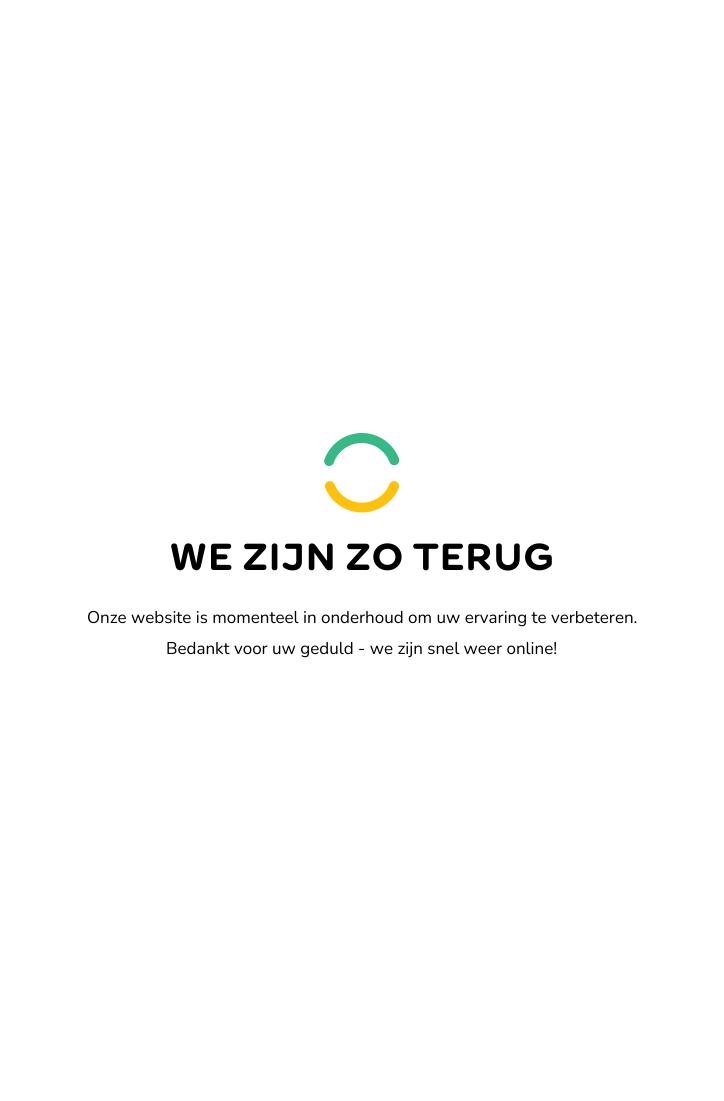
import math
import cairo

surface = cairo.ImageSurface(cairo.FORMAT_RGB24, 724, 1101)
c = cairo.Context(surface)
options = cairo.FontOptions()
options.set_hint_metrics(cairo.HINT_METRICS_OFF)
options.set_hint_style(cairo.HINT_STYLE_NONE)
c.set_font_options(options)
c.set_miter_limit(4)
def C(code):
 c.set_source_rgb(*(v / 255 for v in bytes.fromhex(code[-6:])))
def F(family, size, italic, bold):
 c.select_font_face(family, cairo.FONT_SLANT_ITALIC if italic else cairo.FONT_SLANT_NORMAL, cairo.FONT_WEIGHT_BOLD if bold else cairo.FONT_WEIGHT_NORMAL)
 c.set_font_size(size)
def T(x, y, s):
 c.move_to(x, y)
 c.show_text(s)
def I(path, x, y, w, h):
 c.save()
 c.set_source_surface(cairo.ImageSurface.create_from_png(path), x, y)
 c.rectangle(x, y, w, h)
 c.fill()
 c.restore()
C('ffffff')
c.paint()
I('1.png',324,433,76,80)
F('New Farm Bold',40,0,1)
C('000000')
T(169,570,'WE ZIJN ZO TERUG')
F('Nunito ExtraLight',17,0,0)
T(87,623,'Onze website is momenteel in onderhoud om uw ervaring te verbeteren.')
T(166,654,'Bedankt voor uw geduld - we zijn snel weer online!')
surface.write_to_png('o.png')
